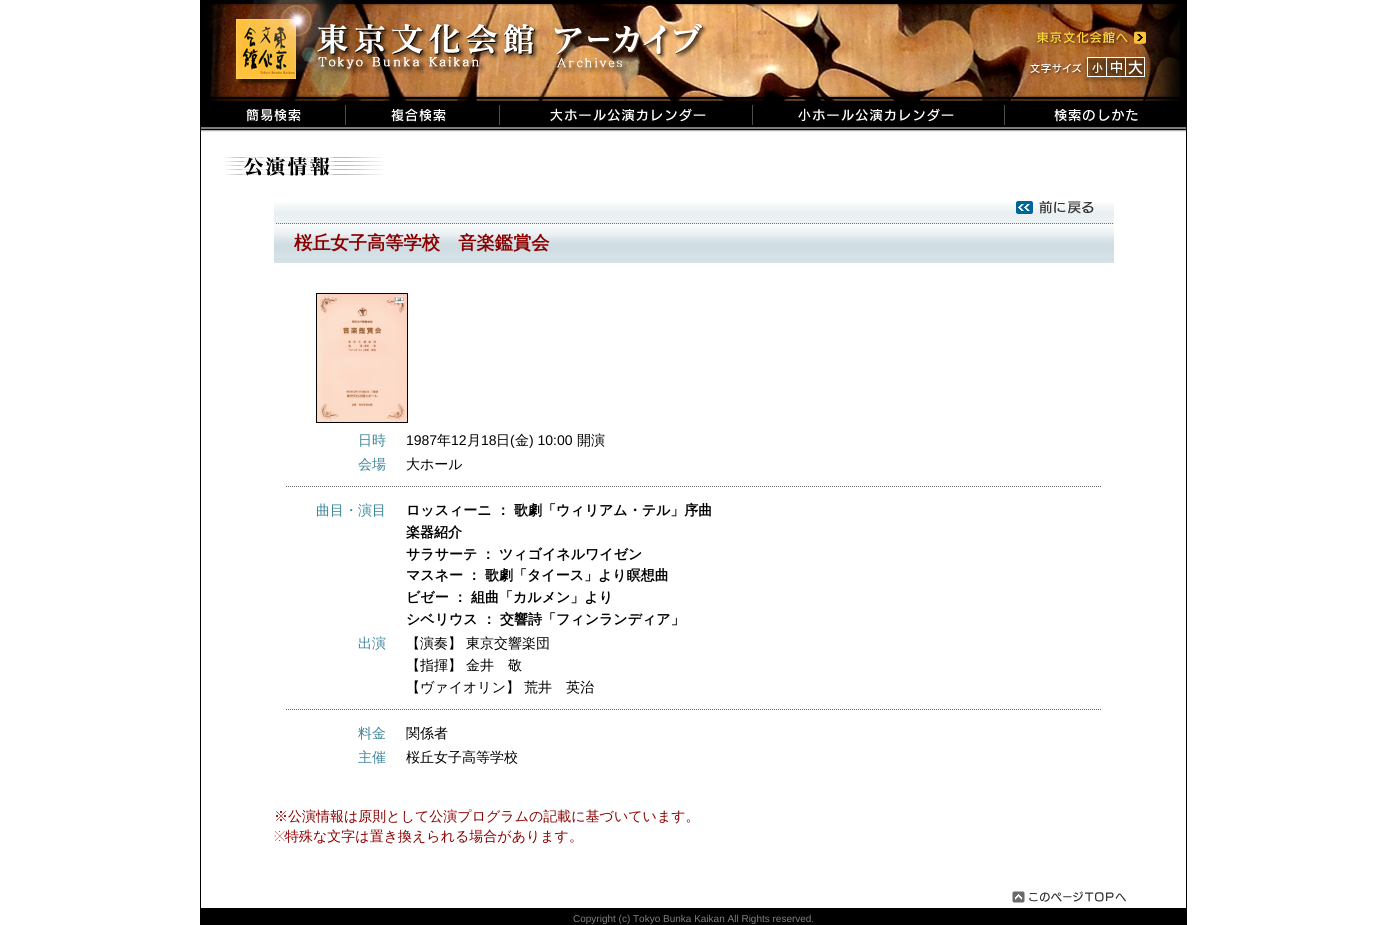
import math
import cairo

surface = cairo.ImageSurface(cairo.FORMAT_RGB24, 1387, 925)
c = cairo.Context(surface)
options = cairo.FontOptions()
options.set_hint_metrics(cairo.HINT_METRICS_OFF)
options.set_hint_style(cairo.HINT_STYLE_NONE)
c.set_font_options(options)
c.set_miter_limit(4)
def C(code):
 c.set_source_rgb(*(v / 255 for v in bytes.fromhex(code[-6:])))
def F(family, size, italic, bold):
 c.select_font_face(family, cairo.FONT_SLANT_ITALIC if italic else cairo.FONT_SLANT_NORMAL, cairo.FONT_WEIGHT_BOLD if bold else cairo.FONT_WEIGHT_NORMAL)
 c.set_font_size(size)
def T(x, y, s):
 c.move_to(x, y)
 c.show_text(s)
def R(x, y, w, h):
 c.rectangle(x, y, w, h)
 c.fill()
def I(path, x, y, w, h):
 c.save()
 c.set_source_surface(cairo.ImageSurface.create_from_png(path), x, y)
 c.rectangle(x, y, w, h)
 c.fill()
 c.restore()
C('ffffff')
c.paint()
C('000000')
R(1186,0,1,925)
R(200,0,1,925)
I('1.png',201,0,985,101)
I('2.png',236,0,471,86)
I('3.png',1037,31,109,15)
I('4.png',1030,57,57,26)
I('5.png',1087,57,19,26)
I('6.png',1106,57,19,26)
I('7.png',1125,57,21,26)
I('8.png',201,101,144,31)
I('9.png',345,101,154,31)
I('10.png',499,101,253,31)
I('11.png',752,101,252,31)
I('12.png',1004,101,182,31)
I('13.png',225,157,158,19)
I('14.png',274,202,840,22)
I('15.png',1016,201,78,13)
I('16.png',274,224,840,39)
F('WenQuanYi Zen Hei',18.25,0,1)
C('8b0000')
T(294,249,'桜丘女子高等学校　音楽鑑賞会')
c.rectangle(316.5,293.5,91,129)
C('000000')
c.set_line_width(1)
c.stroke()
I('17.png',317,294,90,128)
F('WenQuanYi Zen Hei Medium',14,0,0)
C('3e869d')
T(358,445,'日時')
F('Liberation Sans',14,0,0)
C('000000')
T(406,445,'1987')
F('WenQuanYi Zen Hei Medium',14,0,0)
T(437,445,'年')
F('Liberation Sans',14,0,0)
T(451,445,'12')
F('WenQuanYi Zen Hei Medium',14,0,0)
T(467,445,'月')
F('Liberation Sans',14,0,0)
T(481,445,'18')
F('WenQuanYi Zen Hei Medium',14,0,0)
T(496,445,'日')
F('Liberation Sans',14,0,0)
T(510,445,'(')
F('WenQuanYi Zen Hei Medium',14,0,0)
T(515,445,'金')
F('Liberation Sans',14,0,0)
T(529,445,') 10:00')
F('WenQuanYi Zen Hei Medium',14,0,0)
T(577,445,'開演')
C('3e869d')
T(358,469,'会場')
C('000000')
T(406,469,'大ホール')
c.new_path()
c.move_to(286,486.5)
c.line_to(1101,486.5)
C('666666')
c.set_dash([1,1])
c.stroke()
C('3e869d')
T(316,515,'曲目・演目')
F('WenQuanYi Zen Hei',14,0,1)
C('000000')
T(406,515,'ロッスィーニ')
T(496,515,'：')
T(514,515,'歌劇「ウィリアム・テル」序曲')
T(406,537,'楽器紹介')
T(406,559,'サラサーテ')
T(481,559,'：')
T(499,559,'ツィゴイネルワイゼン')
T(406,580,'マスネー')
T(467,580,'：')
T(485,580,'歌劇「タイース」より瞑想曲')
T(406,602,'ビゼー')
T(453,602,'：')
T(471,602,'組曲「カルメン」より')
T(406,624,'シベリウス')
T(482,624,'：')
T(500,624,'交響詩「フィンランディア」')
F('WenQuanYi Zen Hei Medium',14,0,0)
C('3e869d')
T(358,648,'出演')
C('000000')
T(406,648,'【演奏】')
T(466,648,'東京交響楽団')
T(406,670,'【指揮】')
T(466,670,'金井　敬')
T(406,692,'【ヴァイオリン】')
T(524,692,'荒井　英治')
c.new_path()
c.move_to(286,709.5)
c.line_to(1101,709.5)
C('666666')
c.stroke()
C('3e869d')
T(358,738,'料金')
C('000000')
T(406,738,'関係者')
C('3e869d')
T(358,762,'主催')
C('000000')
T(406,762,'桜丘女子高等学校')
C('8b0000')
T(274,821,'※公演情報は原則として公演プログラムの記載に基づいています。')
F('Noto Sans Thin',14,0,0)
T(274,841,'※')
F('WenQuanYi Zen Hei Medium',14,0,0)
T(285,841,'特殊な文字は置き換えられる場合があります。')
I('18.png',1012,891,114,12)
C('000000')
R(201,908,985,17)
F('Liberation Sans',10,0,0)
C('808080')
T(573,922,'Copyright (c) Tokyo Bunka Kaikan All Rights reserved.')
surface.write_to_png('o.png')
